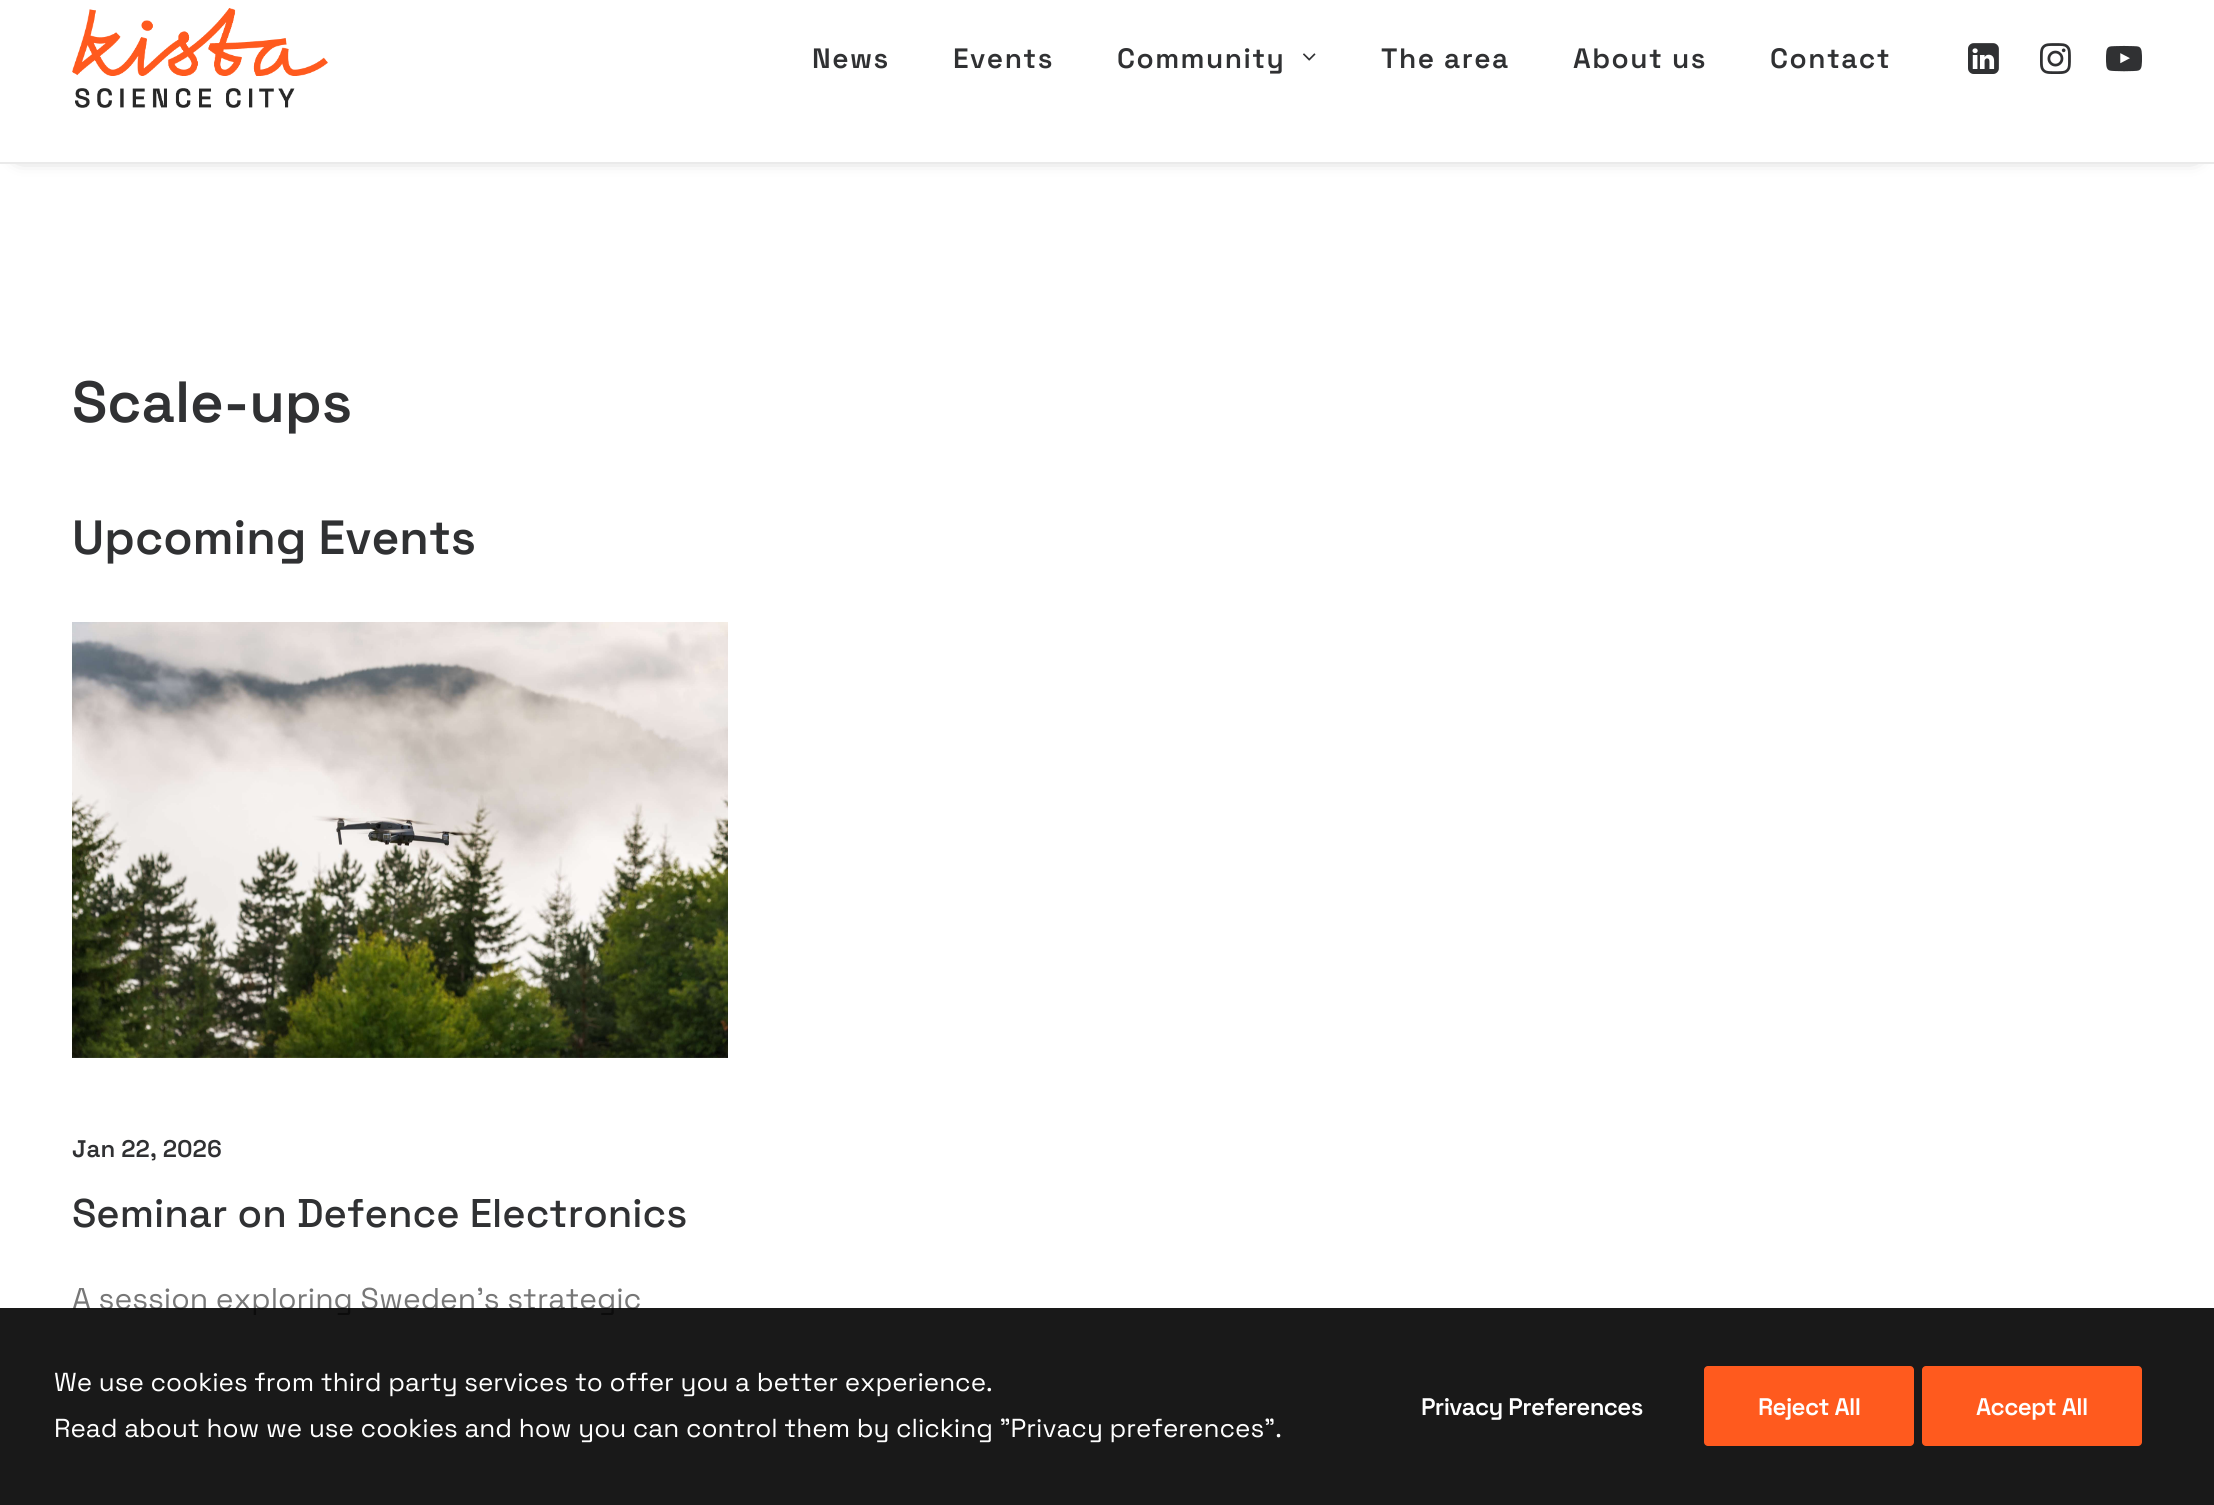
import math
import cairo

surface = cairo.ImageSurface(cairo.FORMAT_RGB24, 2214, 1505)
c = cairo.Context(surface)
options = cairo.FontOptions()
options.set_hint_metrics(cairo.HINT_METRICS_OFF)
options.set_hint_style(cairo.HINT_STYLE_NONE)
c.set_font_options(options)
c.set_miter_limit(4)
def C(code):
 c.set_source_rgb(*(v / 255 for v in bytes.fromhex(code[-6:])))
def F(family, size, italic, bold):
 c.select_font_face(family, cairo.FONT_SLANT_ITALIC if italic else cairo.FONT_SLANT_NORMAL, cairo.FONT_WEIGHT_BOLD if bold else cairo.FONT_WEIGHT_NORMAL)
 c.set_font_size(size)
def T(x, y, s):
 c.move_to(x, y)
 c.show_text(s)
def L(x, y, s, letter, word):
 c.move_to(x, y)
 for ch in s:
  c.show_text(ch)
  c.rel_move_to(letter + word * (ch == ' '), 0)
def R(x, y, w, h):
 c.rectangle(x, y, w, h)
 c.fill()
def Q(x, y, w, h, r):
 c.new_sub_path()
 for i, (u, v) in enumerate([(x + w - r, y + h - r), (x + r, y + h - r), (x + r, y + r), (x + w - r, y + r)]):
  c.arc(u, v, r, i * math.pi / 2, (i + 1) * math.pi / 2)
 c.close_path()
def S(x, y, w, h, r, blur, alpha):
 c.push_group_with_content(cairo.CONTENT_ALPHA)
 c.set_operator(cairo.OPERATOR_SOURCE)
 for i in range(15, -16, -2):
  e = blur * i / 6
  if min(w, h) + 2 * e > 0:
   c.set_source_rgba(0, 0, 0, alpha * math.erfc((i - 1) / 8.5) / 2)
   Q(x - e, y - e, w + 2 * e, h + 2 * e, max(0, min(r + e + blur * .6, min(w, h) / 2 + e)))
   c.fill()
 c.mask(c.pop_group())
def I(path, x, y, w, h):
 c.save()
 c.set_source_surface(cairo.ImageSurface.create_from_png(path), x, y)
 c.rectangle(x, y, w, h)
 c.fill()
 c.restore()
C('ffffff')
c.paint()
C('000000')
S(20,-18,2174,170,0,10,.6)
C('ffffff')
R(0,0,2214,162)
C('eaeaea')
R(0,162,2214,2)
I('1.png',72,8,256,100)
F('Space Grotesk SemiBold',28,0,0)
C('303133')
L(812,68,'News',1.5,0)
L(953,68,'Events',1.5,0)
L(1117,68,'Community',1.5,0)
I('2.png',1303,53,13,8)
L(1381,68,'The area',1.5,0)
L(1573,68,'About us',1.5,0)
L(1770,68,'Contact',1.5,0)
I('3.png',1968,43,31,31)
I('4.png',2040,43,31,31)
I('5.png',2106,45,36,27)
F('Space Grotesk SemiBold',58,0,0)
T(72,422,'Scale-ups')
F('Space Grotesk SemiBold',48,0,0)
T(72,554,'Upcoming Events')
I('6.png',72,622,656,436)
F('Space Grotesk SemiBold',24,0,0)
T(72,1157,'Jan 22, 2026')
F('Space Grotesk Medium',40,0,0)
T(72,1227,'Seminar on Defence Electronics')
F('Space Grotesk',30,0,0)
C('777777')
T(72,1309,'A session exploring Sweden’s strategic')
c.set_source_rgba(0,0,0,0.9)
R(0,1308,2214,197)
F('Space Grotesk',26,0,0)
C('ffffff')
T(54,1391,'We use cookies from third party services to offer you a better experience.')
T(54,1437,'Read about how we use cookies and how you can control them by clicking "Privacy preferences".')
F('Space Grotesk SemiBold',24,0,0)
L(1421,1415,'Privacy Preferences',-.6,0)
C('ff5a1e')
Q(1704,1366,210,80,4)
c.fill()
C('ffffff')
L(1758,1415,'Reject All',-.6,0)
C('ff5a1e')
Q(1922,1366,220,80,4)
c.fill()
C('ffffff')
L(1976,1415,'Accept All',-.6,0)
surface.write_to_png('o.png')
